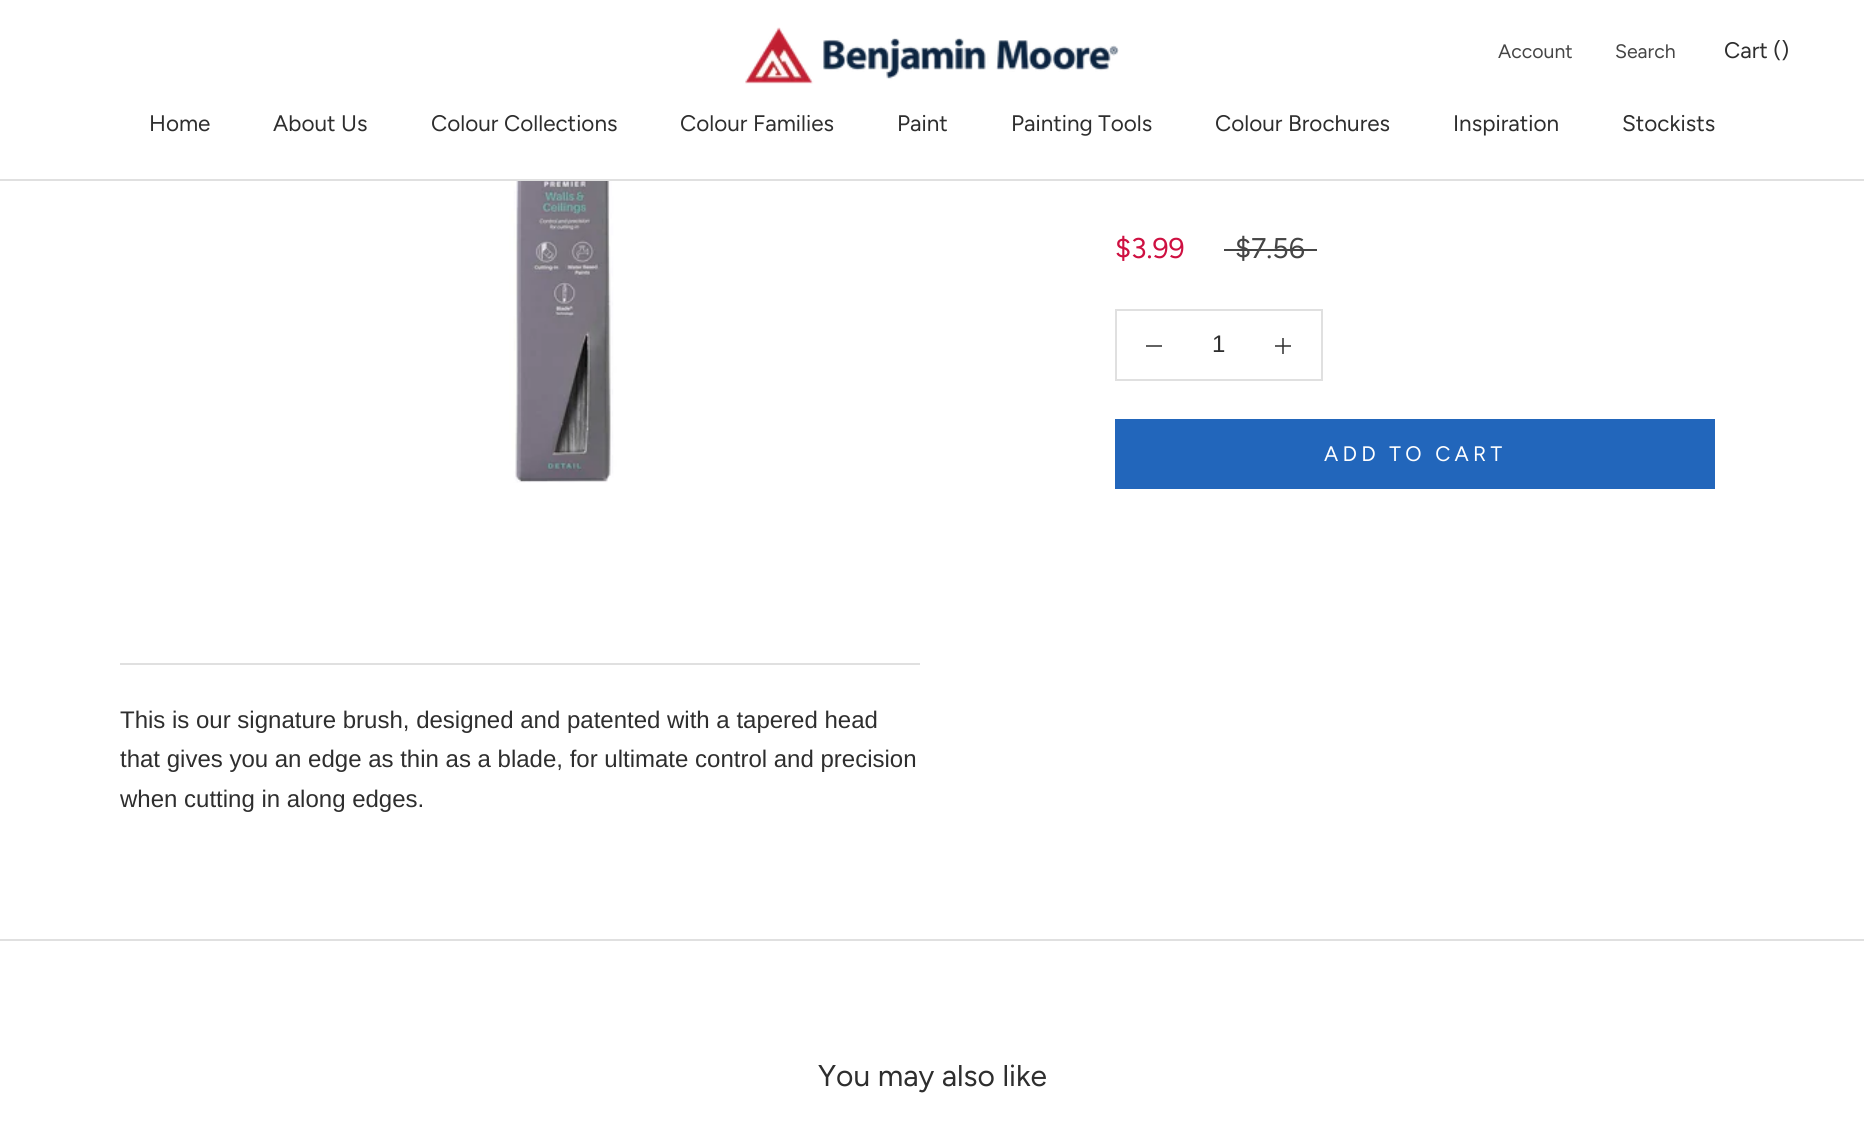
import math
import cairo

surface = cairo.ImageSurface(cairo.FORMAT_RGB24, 1864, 1148)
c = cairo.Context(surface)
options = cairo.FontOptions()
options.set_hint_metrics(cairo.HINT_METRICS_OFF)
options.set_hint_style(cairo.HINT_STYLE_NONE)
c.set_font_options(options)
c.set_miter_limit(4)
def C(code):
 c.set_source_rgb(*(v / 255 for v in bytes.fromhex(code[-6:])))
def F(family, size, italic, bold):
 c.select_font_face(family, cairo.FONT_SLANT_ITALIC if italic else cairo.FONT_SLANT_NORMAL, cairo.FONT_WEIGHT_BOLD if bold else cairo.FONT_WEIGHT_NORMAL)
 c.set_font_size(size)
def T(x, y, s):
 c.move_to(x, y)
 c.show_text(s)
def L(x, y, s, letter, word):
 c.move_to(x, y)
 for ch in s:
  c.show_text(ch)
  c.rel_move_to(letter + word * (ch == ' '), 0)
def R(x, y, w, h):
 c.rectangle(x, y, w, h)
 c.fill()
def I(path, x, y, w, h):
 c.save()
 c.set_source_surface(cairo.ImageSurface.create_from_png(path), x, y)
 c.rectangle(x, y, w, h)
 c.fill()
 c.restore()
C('ffffff')
c.paint()
C('626262')
R(1275,345,16,2)
C('e0e0e0')
R(0,179,1864,2)
I('1.png',745,27,374,57)
F('Figtree',19.5,0,0)
C('454545')
T(1498,58,'Account')
T(1615,58,'Search')
F('Figtree',22.5,0,0)
C('2e2e2e')
T(1724,58,'Cart ()')
T(149,131,'Home')
T(273,131,'About Us')
T(431,131,'Colour Collections')
T(680,131,'Colour Families')
T(897,131,'Paint')
T(1011,131,'Painting Tools')
T(1215,131,'Colour Brochures')
T(1453,131,'Inspiration')
T(1622,131,'Stockists')
I('2.png',509,181,108,302)
F('Figtree',28.5,0,0)
C('ce1041')
T(1115,258,'$3.99')
C('454545')
T(1235,258,'$7.56')
R(1224,249,93,2)
c.rectangle(1116,310,206,70)
C('e0e0e0')
c.stroke()
C('626262')
R(1146,345,16,2)
F('Liberation Sans',24,0,0)
C('2e2e2e')
T(1212,352,'1')
C('626262')
R(1282,338,2,16)
C('3b3b3b')
R(1282,345,2,2)
c.rectangle(1116,420,598,68)
C('2266bb')
c.stroke()
R(1117,421,596,66)
F('Figtree',21,0,0)
C('ffffff')
L(1324,461,'ADD TO CART',4.25,0)
C('e0e0e0')
R(120,663,800,2)
F('Liberation Sans',24,0,0)
C('2e2e2e')
T(120,728,'This is our signature brush, designed and patented with a tapered head')
T(120,767,'that gives you an edge as thin as a blade, for ultimate control and precision')
T(120,807,'when cutting in along edges.')
C('e0e0e0')
R(0,939,1864,2)
F('Figtree',30,0,0)
C('2e2e2e')
T(818,1086,'You may also like')
surface.write_to_png('o.png')
